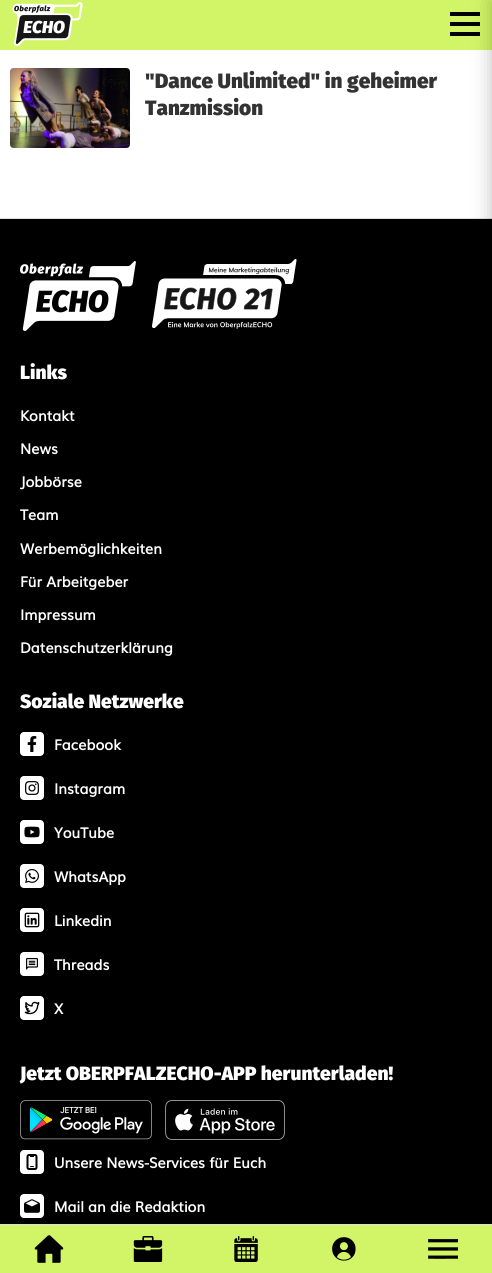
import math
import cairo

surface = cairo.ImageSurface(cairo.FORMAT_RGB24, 492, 1273)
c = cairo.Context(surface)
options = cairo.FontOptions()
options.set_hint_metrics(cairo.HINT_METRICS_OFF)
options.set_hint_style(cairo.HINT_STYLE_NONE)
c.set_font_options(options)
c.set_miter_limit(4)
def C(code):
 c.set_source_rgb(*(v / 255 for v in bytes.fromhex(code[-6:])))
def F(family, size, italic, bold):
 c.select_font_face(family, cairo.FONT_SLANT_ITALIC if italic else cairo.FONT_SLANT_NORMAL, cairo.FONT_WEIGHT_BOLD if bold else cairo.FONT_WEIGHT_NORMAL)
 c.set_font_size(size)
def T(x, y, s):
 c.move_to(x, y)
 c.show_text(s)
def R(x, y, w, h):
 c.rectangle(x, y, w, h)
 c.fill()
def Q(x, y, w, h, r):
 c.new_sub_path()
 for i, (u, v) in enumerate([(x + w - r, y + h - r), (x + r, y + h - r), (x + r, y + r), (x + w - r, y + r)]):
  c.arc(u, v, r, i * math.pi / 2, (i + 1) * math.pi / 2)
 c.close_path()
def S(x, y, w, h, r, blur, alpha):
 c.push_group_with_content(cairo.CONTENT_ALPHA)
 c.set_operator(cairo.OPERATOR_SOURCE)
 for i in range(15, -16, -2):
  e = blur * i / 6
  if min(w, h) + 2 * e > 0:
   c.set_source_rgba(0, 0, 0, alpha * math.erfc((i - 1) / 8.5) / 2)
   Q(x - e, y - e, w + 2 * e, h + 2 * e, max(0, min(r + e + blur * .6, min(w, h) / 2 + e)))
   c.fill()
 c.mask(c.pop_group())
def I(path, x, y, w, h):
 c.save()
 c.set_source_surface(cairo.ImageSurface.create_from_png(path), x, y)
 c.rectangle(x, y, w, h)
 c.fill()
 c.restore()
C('ffffff')
c.paint()
C('d1f567')
R(0,0,492,50)
I('1.png',12,2,71,44)
C('000000')
R(0,219,492,1005)
C('dddddd')
R(0,218,492,1)
C('000000')
S(492,0,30,1273,0,10,.25)
C('000000')
R(450,12,30,4)
R(450,22,30,4)
R(450,32,30,4)
I('2.png',10,68,120,80)
F('Fira Sans Black',20.75,0,0)
C('333333')
T(145,88,'"Dance Unlimited" in geheimer')
T(145,115,'Tanzmission')
I('3.png',20,261,116,70)
I('4.png',152,259,145,70)
F('Fira Sans Black',19.25,0,0)
C('ffffff')
T(20,379,'Links')
F('Muli',14.4,0,1)
T(20,421,'Kontakt')
T(20,454,'News')
T(20,487,'Jobbörse')
T(20,520,'Team')
T(20,554,'Werbemöglichkeiten')
T(20,587,'Für Arbeitgeber')
T(20,620,'Impressum')
T(20,653,'Datenschutzerklärung')
F('Fira Sans Black',19.25,0,0)
T(20,708,'Soziale Netzwerke')
Q(20,732,24,24,4)
c.fill()
I('5.png',27,736,10,16)
F('Muli',14.4,0,1)
T(54,750,'Facebook')
Q(20,776,24,24,4)
c.fill()
I('6.png',25,781,14,14)
T(54,794,'Instagram')
Q(20,820,24,24,4)
c.fill()
I('7.png',24,826,16,12)
T(54,838,'YouTube')
Q(20,864,24,24,4)
c.fill()
I('8.png',25,869,14,14)
T(54,882,'WhatsApp')
Q(20,908,24,24,4)
c.fill()
I('9.png',24,912,16,16)
T(54,926,'Linkedin')
Q(20,952,24,24,4)
c.fill()
I('10.png',26,958,12,12)
T(54,970,'Threads')
Q(20,996,24,24,4)
c.fill()
I('11.png',24,1001,16,14)
T(54,1014,'X')
F('Fira Sans Black',19.25,0,0)
T(20,1080,'Jetzt OBERPFALZECHO-APP herunterladen!')
I('12.png',20,1100,132,40)
I('13.png',165,1100,120,40)
Q(20,1150,24,24,4)
c.fill()
I('14.png',26,1154,12,16)
F('Muli',14.4,0,1)
T(54,1168,'Unsere News-Services für Euch')
Q(20,1194,24,24,4)
c.fill()
I('15.png',24,1199,16,14)
T(54,1212,'Mail an die Redaktion')
C('d1f567')
R(0,1225,492,48)
C('dddddd')
R(0,1224,492,1)
I('16.png',34,1235,30,28)
I('17.png',133,1236,30,26)
I('18.png',234,1236,24,26)
I('19.png',332,1237,24,24)
I('20.png',428,1239,30,20)
surface.write_to_png('o.png')
